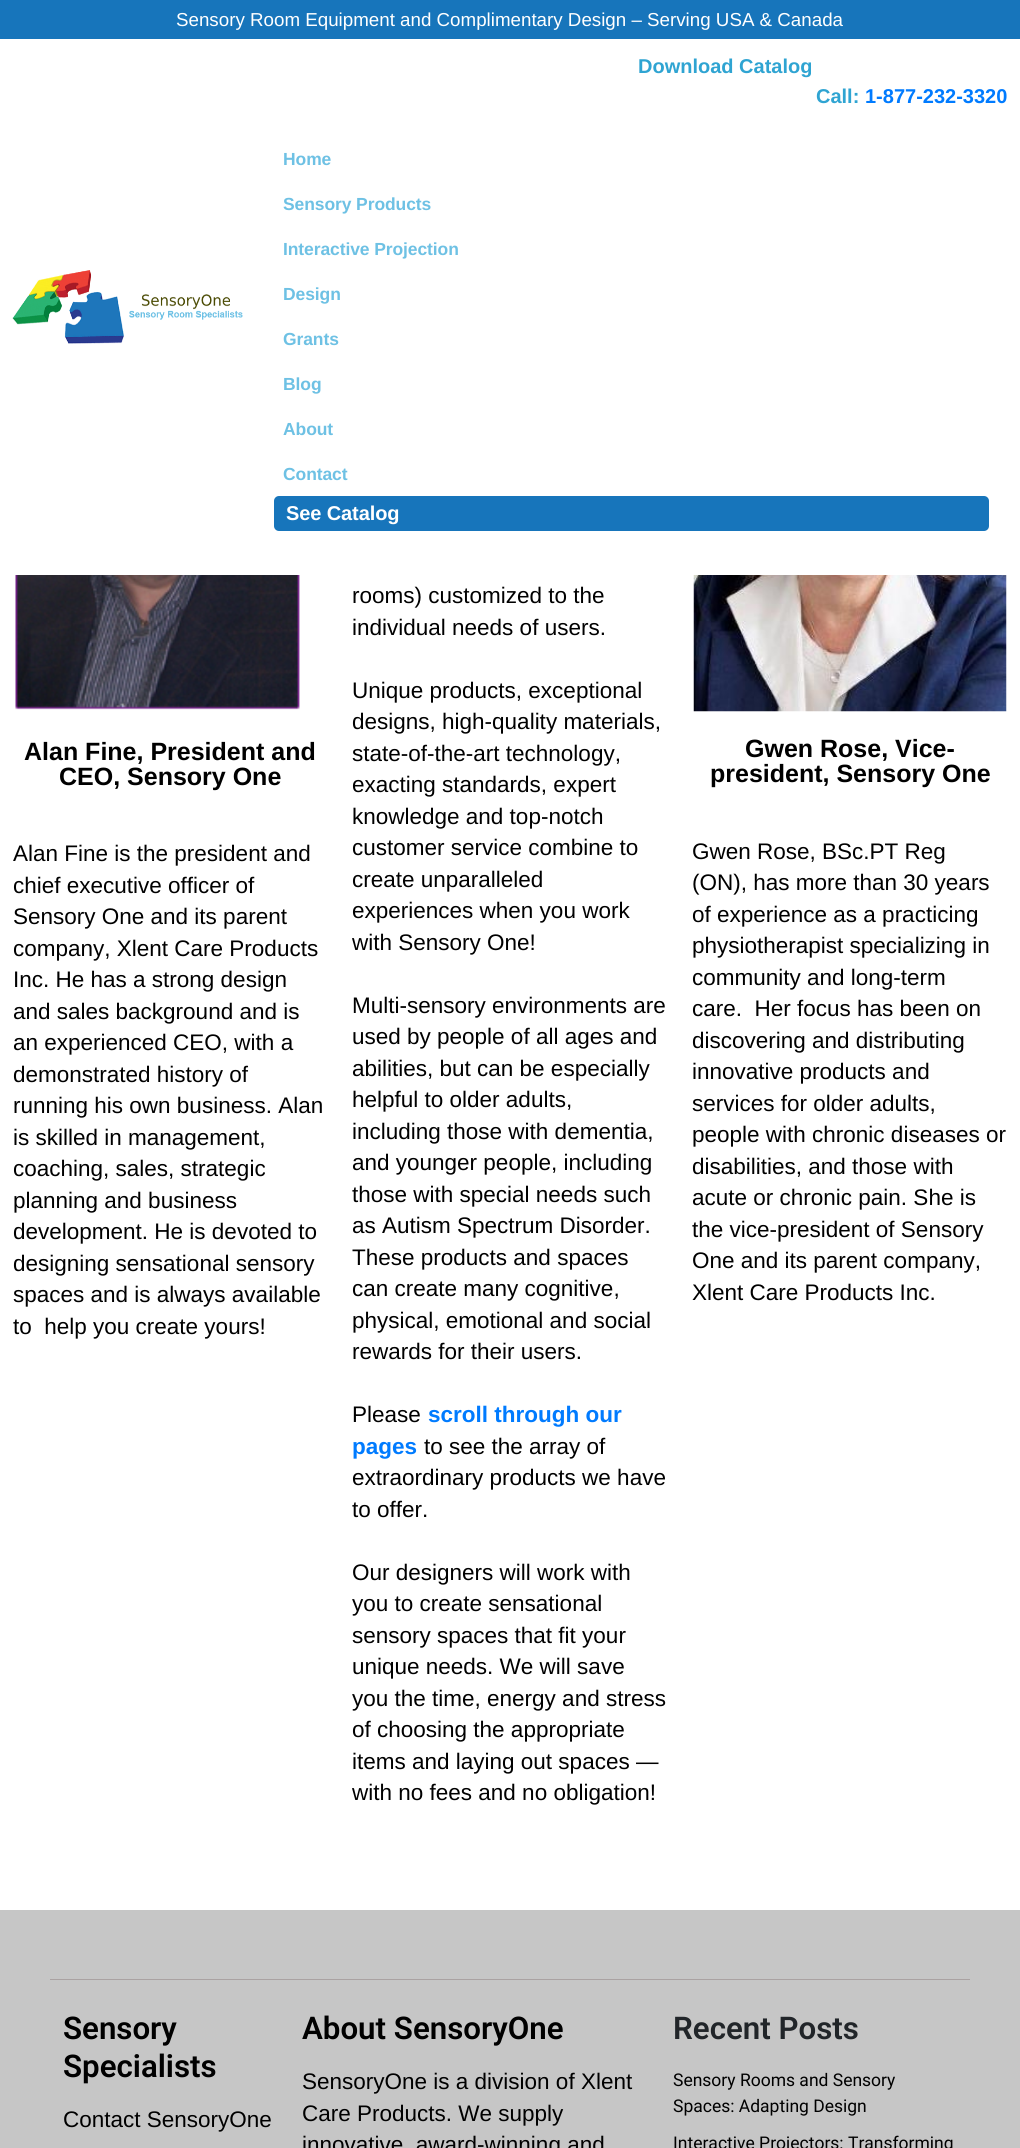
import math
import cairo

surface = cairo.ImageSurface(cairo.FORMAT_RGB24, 1020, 2148)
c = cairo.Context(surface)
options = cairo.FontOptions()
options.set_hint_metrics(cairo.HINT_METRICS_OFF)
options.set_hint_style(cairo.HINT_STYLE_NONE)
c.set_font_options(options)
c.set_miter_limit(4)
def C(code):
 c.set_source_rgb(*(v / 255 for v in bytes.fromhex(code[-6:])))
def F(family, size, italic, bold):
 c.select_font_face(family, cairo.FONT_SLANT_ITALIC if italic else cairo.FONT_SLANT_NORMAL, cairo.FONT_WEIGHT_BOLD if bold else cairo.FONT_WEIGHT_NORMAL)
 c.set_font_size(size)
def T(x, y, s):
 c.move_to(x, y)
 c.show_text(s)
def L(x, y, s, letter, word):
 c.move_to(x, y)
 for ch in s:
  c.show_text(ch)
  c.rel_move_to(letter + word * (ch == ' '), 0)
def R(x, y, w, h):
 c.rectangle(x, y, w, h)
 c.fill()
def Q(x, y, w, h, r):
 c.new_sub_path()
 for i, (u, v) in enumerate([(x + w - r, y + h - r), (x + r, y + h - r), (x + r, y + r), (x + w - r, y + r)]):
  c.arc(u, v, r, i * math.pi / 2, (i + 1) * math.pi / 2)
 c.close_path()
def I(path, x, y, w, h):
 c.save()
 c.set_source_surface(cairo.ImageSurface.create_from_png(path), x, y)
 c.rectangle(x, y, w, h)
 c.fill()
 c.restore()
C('ffffff')
c.paint()
C('1775bb')
R(0,0,1020,39)
F('Liberation Sans',18.75,0,0)
C('ffffff')
T(176,26,'Sensory Room Equipment and Complimentary Design – Serving USA & Canada')
I('1.png',12,270,231,74)
F('Liberation Sans',20,0,1)
C('2fa4d2')
T(638,73,'Download Catalog')
T(816,103,'Call:')
C('007bff')
T(865,103,'1-877-232-3320')
F('Liberation Sans',17.5,0,1)
C('6ec1e4')
L(283,165,'Home',-.1,0)
L(283,210,'Sensory Products',-.1,0)
L(283,255,'Interactive Projection',-.1,0)
L(283,300,'Design',-.1,0)
L(283,345,'Grants',-.1,0)
L(283,390,'Blog',-.1,0)
L(283,435,'About',-.1,0)
L(283,480,'Contact',-.1,0)
C('1775bb')
Q(274,496,715,35,5)
c.fill()
F('Liberation Sans',20,0,1)
C('ffffff')
L(286,520,'See Catalog',-.1,0)
I('2.png',15,575,285,135)
F('Liberation Sans',25,0,1)
C('000000')
T(24,760,'Alan Fine, President and')
T(59,785,'CEO, Sensory One')
F('Liberation Sans',22.5,0,0)
T(13,861,'Alan Fine is the president and')
T(13,893,'chief executive officer of')
T(13,924,'Sensory One and its parent')
T(13,956,'company, Xlent Care Products')
T(13,987,'Inc. He has a strong design')
T(13,1019,'and sales background and is')
T(13,1050,'an experienced CEO, with a')
T(13,1082,'demonstrated history of')
T(13,1113,'running his own business. Alan')
T(13,1145,'is skilled in management,')
T(13,1176,'coaching, sales, strategic')
T(13,1208,'planning and business')
T(13,1239,'development. He is devoted to')
T(13,1271,'designing sensational sensory')
T(13,1302,'spaces and is always available')
T(13,1334,'to  help you create yours!')
T(352,603,'rooms) customized to the')
T(352,635,'individual needs of users.')
T(352,698,'Unique products, exceptional')
T(352,729,'designs, high-quality materials,')
T(352,761,'state-of-the-art technology,')
T(352,792,'exacting standards, expert')
T(352,824,'knowledge and top-notch')
T(352,855,'customer service combine to')
T(352,887,'create unparalleled')
T(352,918,'experiences when you work')
T(352,950,'with Sensory One!')
T(352,1013,'Multi-sensory environments are')
T(352,1044,'used by people of all ages and')
T(352,1076,'abilities, but can be especially')
T(352,1107,'helpful to older adults,')
T(352,1139,'including those with dementia,')
T(352,1170,'and younger people, including')
T(352,1202,'those with special needs such')
T(352,1233,'as Autism Spectrum Disorder.')
T(352,1265,'These products and spaces')
T(352,1296,'can create many cognitive,')
T(352,1328,'physical, emotional and social')
T(352,1359,'rewards for their users.')
T(352,1422,'Please')
F('Liberation Sans',22.5,0,1)
C('007bff')
T(428,1422,'scroll through our')
T(352,1454,'pages')
F('Liberation Sans',22.5,0,0)
C('000000')
T(424,1454,'to see the array of')
T(352,1485,'extraordinary products we have')
T(352,1517,'to offer.')
T(352,1580,'Our designers will work with')
T(352,1611,'you to create sensational')
T(352,1643,'sensory spaces that fit your')
T(352,1674,'unique needs. We will save')
T(352,1706,'you the time, energy and stress')
T(352,1737,'of choosing the appropriate')
T(352,1769,'items and laying out spaces —')
T(352,1800,'with no fees and no obligation!')
I('3.png',693,575,314,137)
F('Liberation Sans',25,0,1)
T(745,757,'Gwen Rose, Vice-')
T(710,782,'president, Sensory One')
F('Liberation Sans',22.5,0,0)
T(692,859,'Gwen Rose, BSc.PT Reg')
T(692,890,'(ON), has more than 30 years')
T(692,922,'of experience as a practicing')
T(692,953,'physiotherapist specializing in')
T(692,985,'community and long-term')
T(692,1016,'care.  Her focus has been on')
T(692,1048,'discovering and distributing')
T(692,1079,'innovative products and')
T(692,1111,'services for older adults,')
T(692,1142,'people with chronic diseases or')
T(692,1174,'disabilities, and those with')
T(692,1205,'acute or chronic pain. She is')
T(692,1237,'the vice-president of Sensory')
T(692,1268,'One and its parent company,')
T(692,1300,'Xlent Care Products Inc.')
C('c6c6c6')
R(0,1910,1020,238)
C('aaa2a2')
R(50,1979,920,1)
F('Roboto SemiBold',31.25,0,0)
C('000000')
T(63,2039,'Sensory')
T(63,2077,'Specialists')
F('Liberation Sans',22.5,0,0)
T(63,2127,'Contact SensoryOne')
F('Roboto SemiBold',31.25,0,0)
T(302,2039,'About SensoryOne')
F('Liberation Sans',22.5,0,0)
T(302,2089,'SensoryOne is a division of Xlent')
T(302,2121,'Care Products. We supply')
T(302,2152,'innovative, award-winning and')
F('Roboto SemiBold',31.25,0,0)
C('212529')
T(673,2039,'Recent Posts')
F('Roboto',17.5,0,0)
C('000000')
T(673,2086,'Sensory Rooms and Sensory')
T(673,2112,'Spaces: Adapting Design')
T(673,2149,'Interactive Projectors: Transforming')
surface.write_to_png('o.png')
